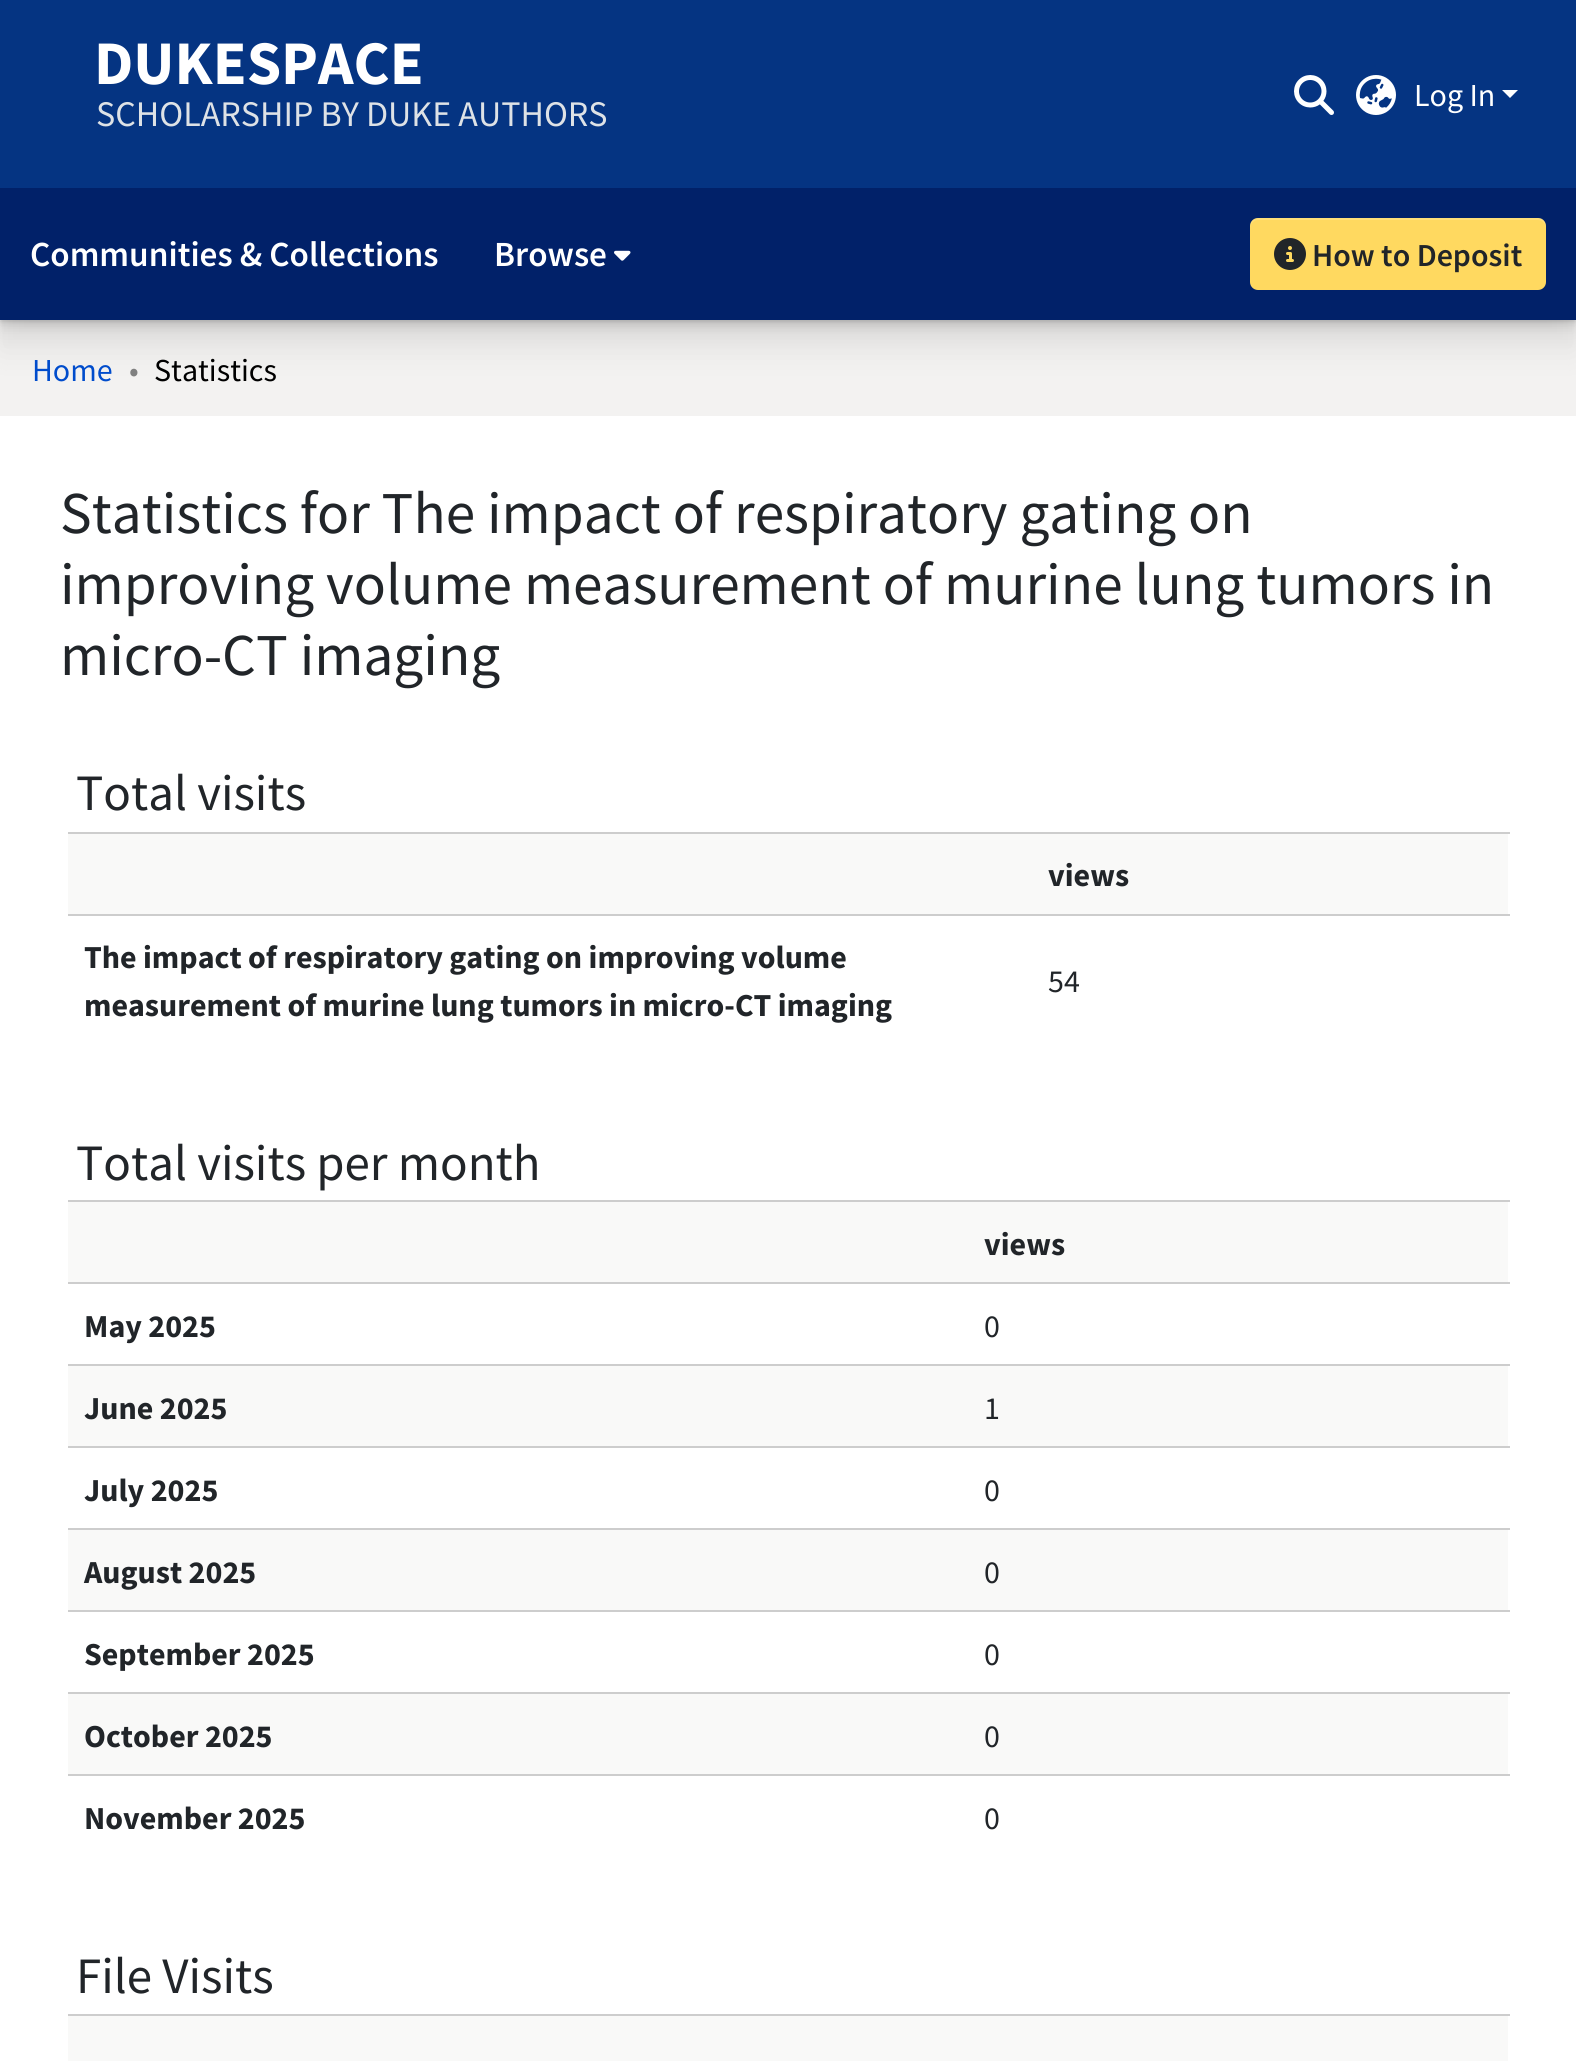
import math
import cairo

surface = cairo.ImageSurface(cairo.FORMAT_RGB24, 1576, 2061)
c = cairo.Context(surface)
options = cairo.FontOptions()
options.set_hint_metrics(cairo.HINT_METRICS_OFF)
options.set_hint_style(cairo.HINT_STYLE_NONE)
c.set_font_options(options)
c.set_miter_limit(4)
def C(code):
 c.set_source_rgb(*(v / 255 for v in bytes.fromhex(code[-6:])))
def F(family, size, italic, bold):
 c.select_font_face(family, cairo.FONT_SLANT_ITALIC if italic else cairo.FONT_SLANT_NORMAL, cairo.FONT_WEIGHT_BOLD if bold else cairo.FONT_WEIGHT_NORMAL)
 c.set_font_size(size)
def T(x, y, s):
 c.move_to(x, y)
 c.show_text(s)
def R(x, y, w, h):
 c.rectangle(x, y, w, h)
 c.fill()
def Q(x, y, w, h, r):
 c.new_sub_path()
 for i, (u, v) in enumerate([(x + w - r, y + h - r), (x + r, y + h - r), (x + r, y + r), (x + w - r, y + r)]):
  c.arc(u, v, r, i * math.pi / 2, (i + 1) * math.pi / 2)
 c.close_path()
def S(x, y, w, h, r, blur, alpha):
 c.push_group_with_content(cairo.CONTENT_ALPHA)
 c.set_operator(cairo.OPERATOR_SOURCE)
 for i in range(15, -16, -2):
  e = blur * i / 6
  if min(w, h) + 2 * e > 0:
   c.set_source_rgba(0, 0, 0, alpha * math.erfc((i - 1) / 8.5) / 2)
   Q(x - e, y - e, w + 2 * e, h + 2 * e, max(0, min(r + e + blur * .6, min(w, h) / 2 + e)))
   c.fill()
 c.mask(c.pop_group())
def I(path, x, y, w, h):
 c.save()
 c.set_source_surface(cairo.ImageSurface.create_from_png(path), x, y)
 c.rectangle(x, y, w, h)
 c.fill()
 c.restore()
C('f3f2f1')
c.paint()
C('053482')
R(0,0,1576,188)
F('Source Sans Pro',62,0,1)
C('ffffff')
T(94,84,'DUKESPACE')
F('Source Sans Pro',36,0,0)
C('dee2e6')
T(96,126,'SCHOLARSHIP BY DUKE AUTHORS')
I('1.png',1294,75,40,40)
I('2.png',1356,75,40,40)
F('Source Sans Pro',32,0,0)
C('ffffff')
T(1414,106,'Log In')
c.new_path()
c.move_to(1502,90)
c.line_to(1518,90)
c.line_to(1510,98)
c.close_path()
c.fill()
C('000000')
S(0,220,1576,132,0,16,.06)
S(0,204,1576,132,0,8,.06)
S(0,196,1576,132,0,4,.06)
S(0,192,1576,132,0,2,.06)
S(0,190,1576,132,0,1,.06)
C('012169')
R(0,188,1576,132)
F('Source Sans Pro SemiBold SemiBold',35.25,0,0)
C('ffffff')
T(30,266,'Communities & Collections')
T(494,266,'Browse')
I('3.png',614,250,17,11)
C('ffd960')
Q(1250,218,296,72,8)
c.fill()
c.set_source_rgba(1,1,1,0.15)
c.new_path()
c.move_to(1258,220)
c.line_to(1538,220)
c.curve_to(1542,220,1546,224,1546,228)
c.curve_to(1546,224,1545,219,1540,218)
c.line_to(1258,218)
c.curve_to(1252,218,1250,223,1250,228)
c.curve_to(1250,224,1254,220,1258,220)
c.close_path()
c.fill()
I('4.png',1274,238,32,32)
F('Source Sans Pro SemiBold SemiBold',32,0,0)
C('212529')
T(1312,266,'How to Deposit')
F('Source Sans Pro',32,0,0)
C('004ccc')
T(32,381,'Home')
C('808080')
T(129,381,'•')
C('000000')
T(154,381,'Statistics')
C('ffffff')
R(0,416,1576,1645)
F('Source Sans Pro',59.35,0,0)
C('212529')
T(60,533,'Statistics for The impact of respiratory gating on')
T(60,604,'improving volume measurement of murine lung tumors in')
T(60,675,'micro-CT imaging')
F('Source Sans Pro',51,0,0)
T(76,810,'Total visits')
C('f9f9f8')
R(68,834,1440,80)
C('cdcdcd')
R(68,832,1442,2)
F('Source Sans Pro',32,0,1)
C('212529')
T(1048,886,'views')
T(84,968,'The impact of respiratory gating on improving volume')
T(84,1016,'measurement of murine lung tumors in micro-CT imaging')
C('cdcdcd')
R(68,914,1442,2)
F('Source Sans Pro',32,0,0)
C('212529')
T(1048,992,'54')
F('Source Sans Pro',51,0,0)
T(76,1180,'Total visits per month')
C('f9f9f8')
R(68,1202,1440,80)
C('cdcdcd')
R(68,1200,1442,2)
F('Source Sans Pro',32,0,1)
C('212529')
T(984,1255,'views')
T(84,1337,'May 2025')
C('cdcdcd')
R(68,1282,1442,2)
F('Source Sans Pro',32,0,0)
C('212529')
T(984,1337,'0')
C('f9f9f8')
R(68,1366,1440,80)
F('Source Sans Pro',32,0,1)
C('212529')
T(84,1419,'June 2025')
C('cdcdcd')
R(68,1364,1442,2)
F('Source Sans Pro',32,0,0)
C('212529')
T(984,1419,'1')
F('Source Sans Pro',32,0,1)
T(84,1501,'July 2025')
C('cdcdcd')
R(68,1446,1442,2)
F('Source Sans Pro',32,0,0)
C('212529')
T(984,1501,'0')
C('f9f9f8')
R(68,1530,1440,80)
F('Source Sans Pro',32,0,1)
C('212529')
T(84,1583,'August 2025')
C('cdcdcd')
R(68,1528,1442,2)
F('Source Sans Pro',32,0,0)
C('212529')
T(984,1583,'0')
F('Source Sans Pro',32,0,1)
T(84,1665,'September 2025')
C('cdcdcd')
R(68,1610,1442,2)
F('Source Sans Pro',32,0,0)
C('212529')
T(984,1665,'0')
C('f9f9f8')
R(68,1694,1440,80)
F('Source Sans Pro',32,0,1)
C('212529')
T(84,1747,'October 2025')
C('cdcdcd')
R(68,1692,1442,2)
F('Source Sans Pro',32,0,0)
C('212529')
T(984,1747,'0')
F('Source Sans Pro',32,0,1)
T(84,1829,'November 2025')
C('cdcdcd')
R(68,1774,1442,2)
F('Source Sans Pro',32,0,0)
C('212529')
T(984,1829,'0')
F('Source Sans Pro',51,0,0)
T(76,1993,'File Visits')
C('f9f9f8')
R(68,2016,1440,45)
C('cdcdcd')
R(68,2014,1442,2)
surface.write_to_png('o.png')
